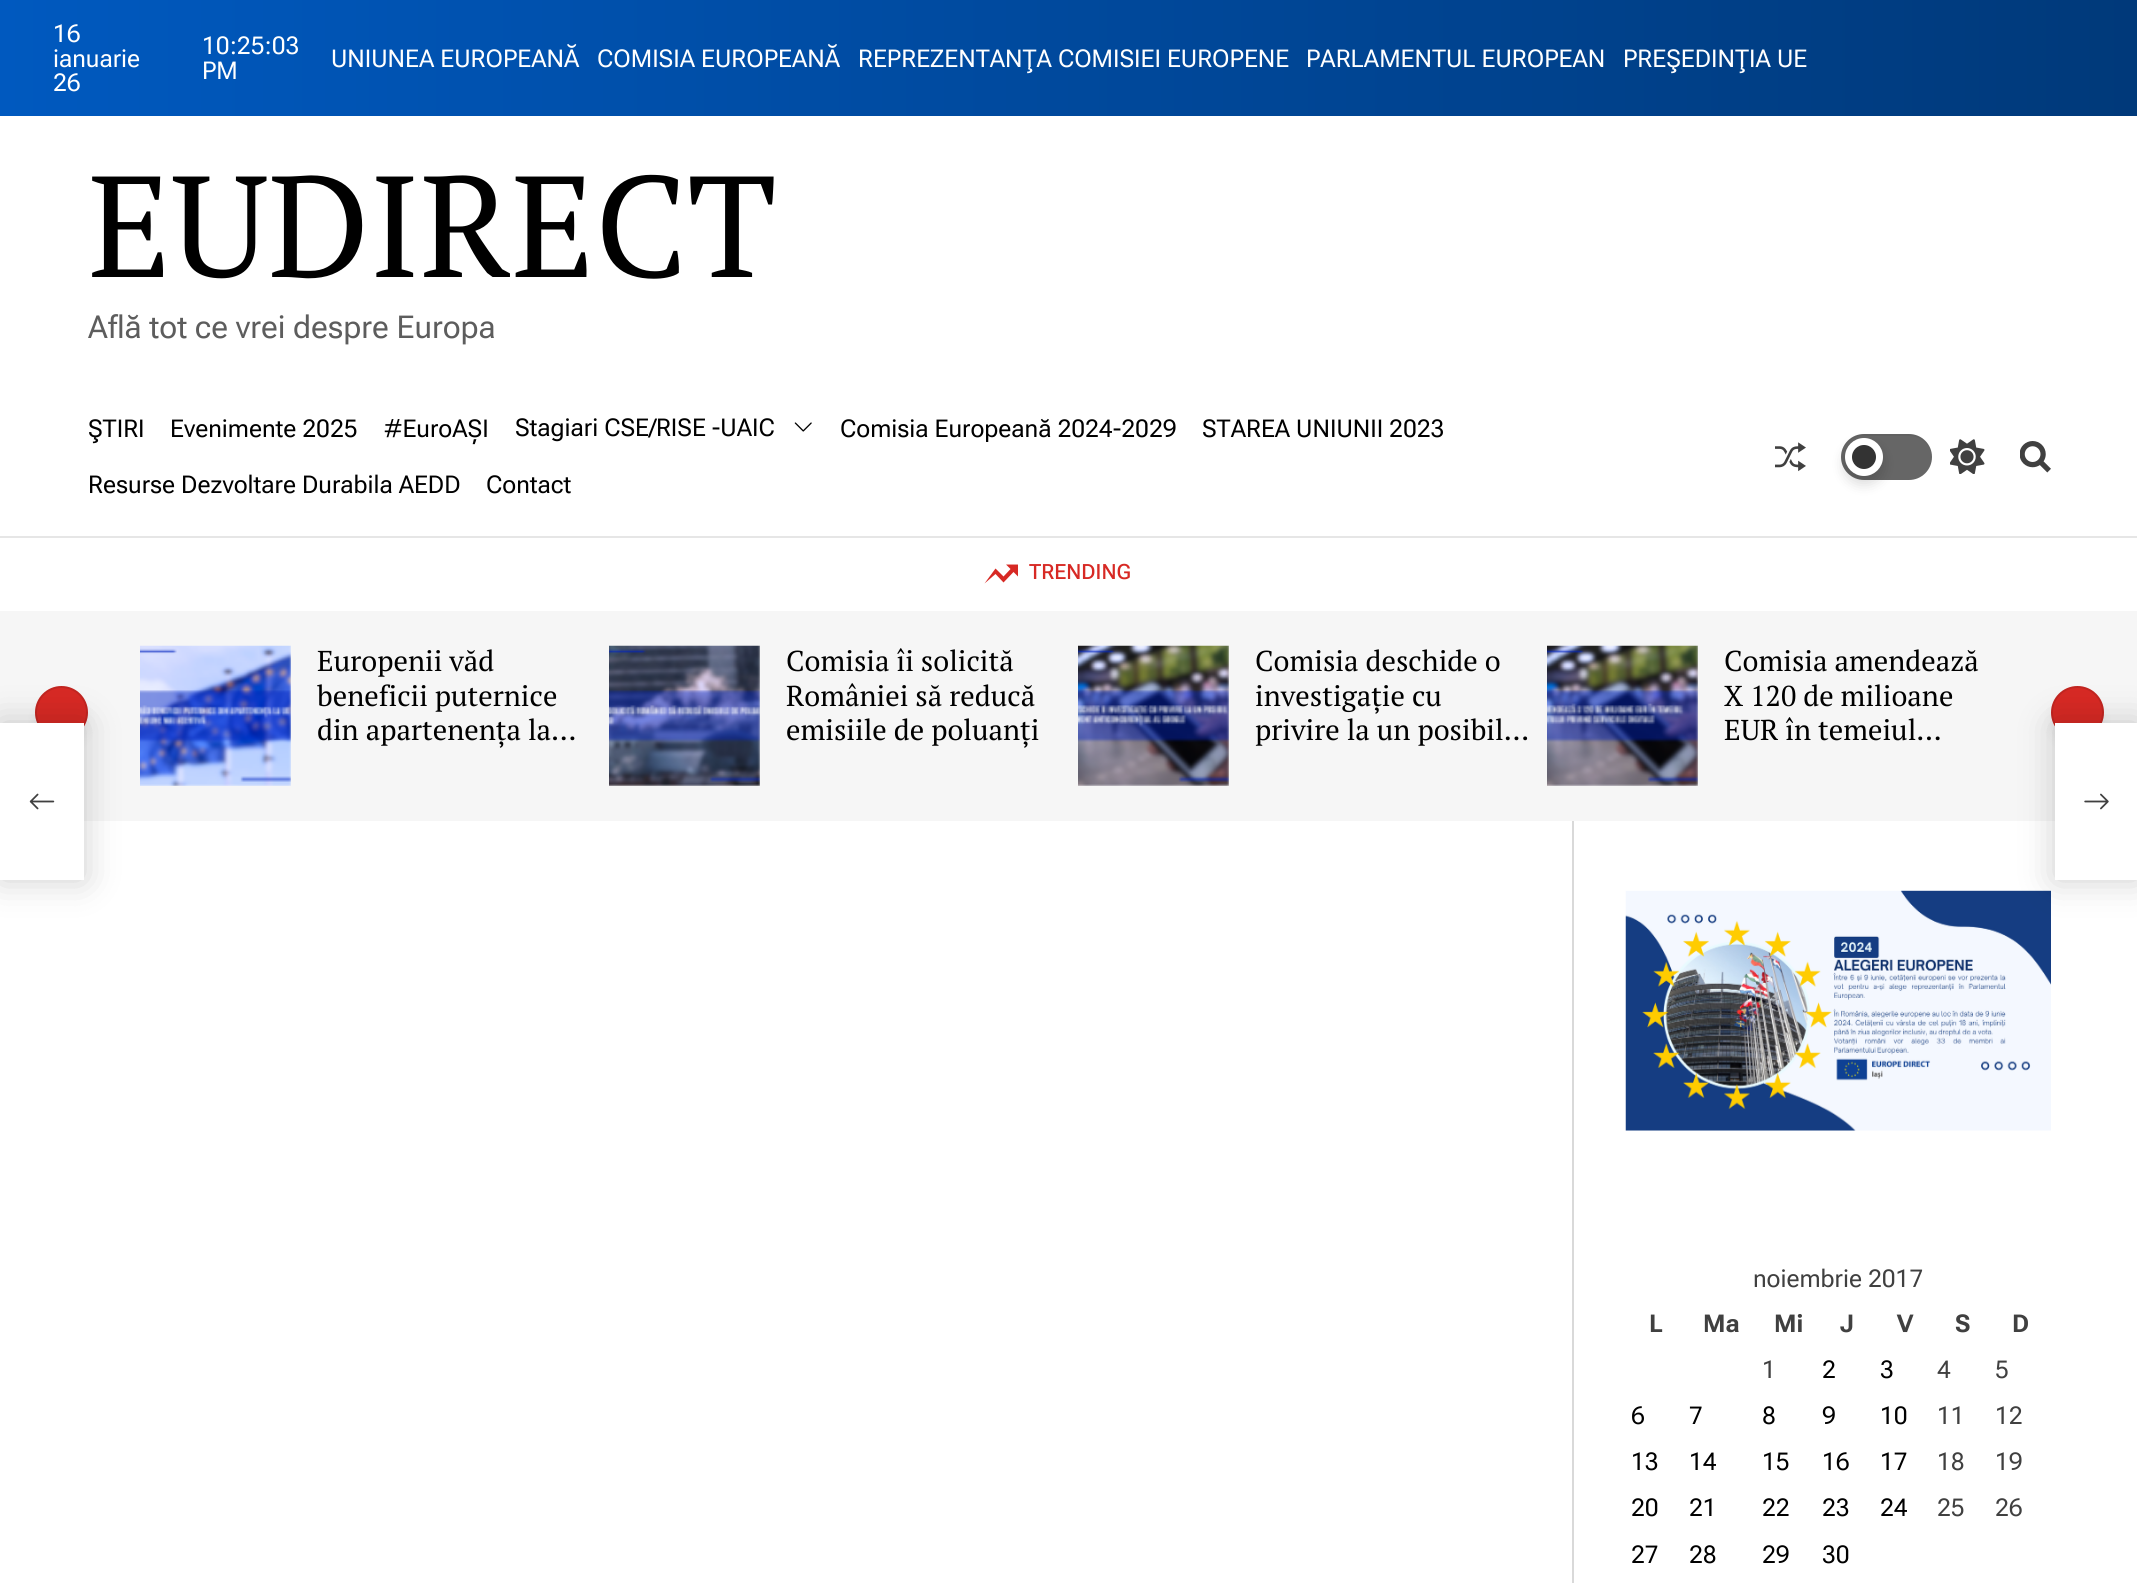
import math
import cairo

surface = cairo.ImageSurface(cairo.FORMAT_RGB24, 2137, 1583)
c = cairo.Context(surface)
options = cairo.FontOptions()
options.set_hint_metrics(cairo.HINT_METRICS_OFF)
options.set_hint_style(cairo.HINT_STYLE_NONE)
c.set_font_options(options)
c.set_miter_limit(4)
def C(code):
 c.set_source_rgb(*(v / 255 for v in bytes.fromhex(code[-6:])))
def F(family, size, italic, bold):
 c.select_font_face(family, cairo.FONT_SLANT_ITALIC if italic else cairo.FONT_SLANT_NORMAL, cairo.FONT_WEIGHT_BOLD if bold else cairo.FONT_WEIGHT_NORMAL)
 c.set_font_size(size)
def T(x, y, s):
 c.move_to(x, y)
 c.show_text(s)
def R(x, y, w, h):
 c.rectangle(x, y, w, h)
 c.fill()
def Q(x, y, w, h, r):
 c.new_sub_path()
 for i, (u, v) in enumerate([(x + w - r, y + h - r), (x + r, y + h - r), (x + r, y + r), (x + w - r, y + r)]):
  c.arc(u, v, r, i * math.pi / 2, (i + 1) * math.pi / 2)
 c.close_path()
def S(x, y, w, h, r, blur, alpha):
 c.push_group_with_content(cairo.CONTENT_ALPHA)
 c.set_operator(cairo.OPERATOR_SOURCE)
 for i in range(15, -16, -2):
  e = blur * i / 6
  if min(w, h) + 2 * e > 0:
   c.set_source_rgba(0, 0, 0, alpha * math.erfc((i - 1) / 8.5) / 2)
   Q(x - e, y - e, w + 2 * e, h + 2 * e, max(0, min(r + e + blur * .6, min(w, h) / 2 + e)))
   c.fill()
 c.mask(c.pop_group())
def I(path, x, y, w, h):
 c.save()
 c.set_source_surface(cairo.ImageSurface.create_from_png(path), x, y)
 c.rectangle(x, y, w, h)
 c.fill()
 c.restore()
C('ffffff')
c.paint()
C('e6e6e6')
R(0,536,2137,2)
gradient = cairo.LinearGradient(0,58,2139,58)
gradient.add_color_stop_rgba(0,0,0.349,0.749,1)
gradient.add_color_stop_rgba(1,0,0.224,0.478,1)
c.set_source(gradient)
R(0,0,2137,116)
F('Roboto Flex',24.5,0,0)
C('ffffff')
T(53,42,'16')
T(53,67,'ianuarie')
T(53,91,'26')
T(202,54,'10:25:03')
T(202,79,'PM')
T(331,67,'UNIUNEA EUROPEANĂ')
T(597,67,'COMISIA EUROPEANĂ')
T(858,67,'REPREZENTANŢA COMISIEI EUROPENE')
T(1306,67,'PARLAMENTUL EUROPEAN')
T(1623,67,'PREŞEDINŢIA UE')
F('PT Serif',143.5,0,0)
C('000000')
T(88,277,'EUDIRECT')
F('Roboto Flex',31.5,0,0)
C('5d5d5d')
T(88,338,'Află tot ce vrei despre Europa')
F('Roboto Flex',24.5,0,0)
C('000000')
T(88,437,'ŞTIRI')
T(170,437,'Evenimente 2025')
T(384,437,'#EuroAȘI')
T(515,436,'Stagiari CSE/RISE -UAIC')
I('1.png',794,422,18,10)
T(840,437,'Comisia Europeană 2024-2029')
T(1202,437,'STAREA UNIUNII 2023')
T(88,493,'Resurse Dezvoltare Durabila AEDD')
T(486,493,'Contact')
I('2.png',1775,442,31,30)
C('666666')
Q(1841,434,91,46,23)
c.fill()
c.set_source_rgba(0,0,0,0.05)
c.new_path()
c.move_to(1864,436)
c.line_to(1909,436)
c.curve_to(1922,436,1932,446,1932,458)
c.line_to(1932,457)
c.curve_to(1932,444,1922,434,1909,434)
c.line_to(1864,434)
c.curve_to(1851,434,1841,444,1841,457)
c.line_to(1841,458)
c.curve_to(1841,446,1851,436,1864,436)
c.close_path()
c.fill()
C('000000')
S(1845,445,38,38,19,7,.16)
C('333333')
c.arc(1864,457,15.5,0,2 * math.pi)
c.fill_preserve()
C('ffffff')
c.set_line_width(7)
c.stroke()
I('3.png',1950,439,35,35)
I('4.png',2020,441,31,32)
C('d72924')
c.new_path()
c.move_to(1008,566.5)
c.line_to(1010.5,569)
c.line_to(1003.5,576.5)
c.line_to(995.5,568.5)
c.line_to(984.5,583.5)
c.line_to(995.5,574)
c.line_to(1003.5,582.5)
c.line_to(1013.5,572)
c.line_to(1018,576.5)
c.line_to(1018,564.5)
c.line_to(1006,564.5)
c.close_path()
c.fill()
F('Roboto Flex Medium',21,0,0)
T(1029,579,'TRENDING')
C('f6f6f6')
R(0,611,2137,210)
C('000000')
S(35,697,53,52,26,5,.05)
C('d72924')
c.arc(61.5,712.5,26.5,0,2 * math.pi)
c.fill()
c.arc(61.5,712.5,25.5,0,2 * math.pi)
c.set_source_rgba(0,0,0,0.1)
c.set_line_width(2)
c.stroke()
I('5.png',140,645,151,141)
F('PT Serif',28.75,0,0)
C('000000')
T(317,671,'Europenii văd')
T(317,706,'beneficii puternice')
T(317,740,'din apartenența la…')
I('6.png',609,645,151,141)
T(786,671,'Comisia îi solicită')
T(786,706,'României să reducă')
T(786,740,'emisiile de poluanți')
I('7.png',1078,645,151,141)
T(1255,671,'Comisia deschide o')
T(1255,706,'investigație cu')
T(1255,740,'privire la un posibil…')
I('8.png',1547,645,151,141)
T(1724,671,'Comisia amendează')
T(1724,706,'X 120 de milioane')
T(1724,740,'EUR în temeiul…')
C('000000')
S(2051,697,53,52,26,5,.05)
C('d72924')
c.arc(2077.5,712.5,26.5,0,2 * math.pi)
c.fill()
c.arc(2077.5,712.5,25.5,0,2 * math.pi)
c.set_source_rgba(0,0,0,0.1)
c.stroke()
C('000000')
S(0,723,84,157,0,17.5,.2)
C('ffffff')
R(0,723,84,157)
I('9.png',29,793,26,17)
I('11.png',1625,890,426,241)
C('000000')
S(2055,723,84,157,0,17.5,.2)
C('ffffff')
R(2055,723,82,157)
I('10.png',2084,793,25,17)
C('d9d9d9')
R(1572,821,2,762)
F('Roboto Flex',24.5,0,0)
C('404040')
T(1753,1287,'noiembrie 2017')
F('Roboto Flex',24.5,0,1)
T(1649,1332,'L')
T(1703,1332,'Ma')
T(1774,1332,'Mi')
T(1840,1332,'J')
T(1897,1332,'V')
T(1955,1332,'S')
T(2012,1332,'D')
F('Roboto Flex',24.5,0,0)
T(1762,1378,'1')
C('000000')
T(1822,1378,'2')
T(1880,1378,'3')
C('404040')
T(1937,1378,'4')
T(1995,1378,'5')
C('000000')
T(1631,1424,'6')
T(1689,1424,'7')
T(1762,1424,'8')
T(1822,1424,'9')
T(1880,1424,'10')
C('404040')
T(1937,1424,'11')
T(1995,1424,'12')
C('000000')
T(1631,1470,'13')
T(1689,1470,'14')
T(1762,1470,'15')
T(1822,1470,'16')
T(1880,1470,'17')
C('404040')
T(1937,1470,'18')
T(1995,1470,'19')
C('000000')
T(1631,1516,'20')
T(1689,1516,'21')
T(1762,1516,'22')
T(1822,1516,'23')
T(1880,1516,'24')
C('404040')
T(1937,1516,'25')
T(1995,1516,'26')
C('000000')
T(1631,1563,'27')
T(1689,1563,'28')
T(1762,1563,'29')
T(1822,1563,'30')
surface.write_to_png('o.png')
